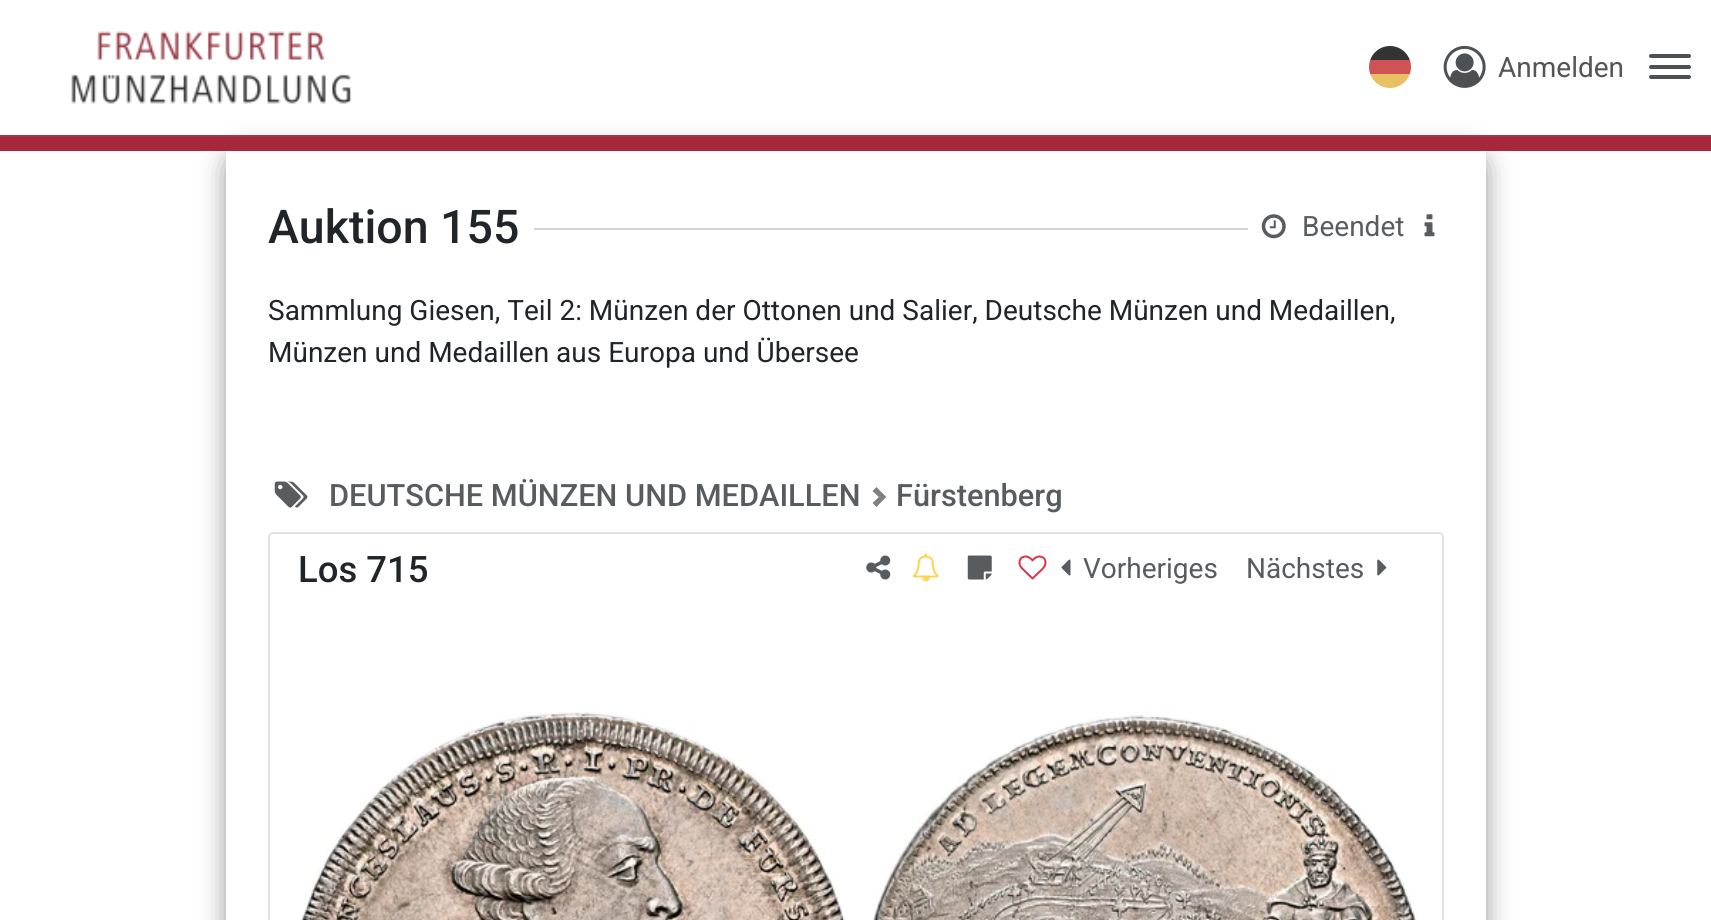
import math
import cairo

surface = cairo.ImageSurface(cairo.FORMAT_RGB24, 1711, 920)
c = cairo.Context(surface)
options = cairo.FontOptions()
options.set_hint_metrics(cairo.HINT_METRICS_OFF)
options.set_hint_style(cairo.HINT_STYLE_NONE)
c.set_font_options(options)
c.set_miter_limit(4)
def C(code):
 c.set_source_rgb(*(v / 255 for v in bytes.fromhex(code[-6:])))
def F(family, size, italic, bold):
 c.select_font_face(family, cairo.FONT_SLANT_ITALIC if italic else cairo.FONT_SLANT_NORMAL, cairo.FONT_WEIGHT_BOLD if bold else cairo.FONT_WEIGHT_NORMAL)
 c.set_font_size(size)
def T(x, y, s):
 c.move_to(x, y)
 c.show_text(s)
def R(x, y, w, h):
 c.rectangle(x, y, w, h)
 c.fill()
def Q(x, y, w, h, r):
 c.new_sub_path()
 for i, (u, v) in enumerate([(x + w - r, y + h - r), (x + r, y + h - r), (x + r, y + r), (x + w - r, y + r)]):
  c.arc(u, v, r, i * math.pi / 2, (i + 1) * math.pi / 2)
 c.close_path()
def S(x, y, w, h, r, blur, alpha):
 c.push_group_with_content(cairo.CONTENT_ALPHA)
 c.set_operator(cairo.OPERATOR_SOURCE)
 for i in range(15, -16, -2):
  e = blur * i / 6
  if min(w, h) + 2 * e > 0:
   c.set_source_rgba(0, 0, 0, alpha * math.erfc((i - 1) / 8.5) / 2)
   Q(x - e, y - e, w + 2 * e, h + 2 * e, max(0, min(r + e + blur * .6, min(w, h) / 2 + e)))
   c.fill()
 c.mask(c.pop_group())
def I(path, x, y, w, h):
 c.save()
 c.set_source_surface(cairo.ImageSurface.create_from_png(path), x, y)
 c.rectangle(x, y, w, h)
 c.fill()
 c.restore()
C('ffffff')
c.paint()
I('1.png',71,31,280,73)
c.save()
Q(1369,46,42,42,21)
c.clip()
C('333333')
R(1370,46,40,14)
C('e8c163')
R(1369,73,42,15)
C('cf5255')
R(1369,60,42,14)
c.restore()
I('2.png',1443,45,43,43)
F('Roboto',28,0,0)
C('555555')
T(1498,77,'Anmelden')
C('4d5154')
Q(1649,54,42,4,2)
c.fill()
Q(1649,65,42,4,2)
c.fill()
Q(1649,75,42,4,2)
c.fill()
C('999999')
S(226,151,1260,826,18,13,1)
C('a8283b')
R(0,137,1711,14)
C('9f3948')
R(0,135,1711,2)
C('ffffff')
R(226,151,1260,769)
F('Roboto Medium',46.5,0,0)
C('212529')
T(268,243,'Auktion 155')
C('d3d3d3')
R(534,228,714,2)
I('3.png',1261,214,25,25)
F('Roboto',28,0,0)
C('595c5f')
T(1302,236,'Beendet')
I('4.png',1424,214,11,23)
C('212529')
T(268,320,'Sammlung Giesen, Teil 2: Münzen der Ottonen und Salier, Deutsche Münzen und Medaillen,')
T(268,362,'Münzen und Medaillen aus Europa und Übersee')
I('5.png',274,481,34,27)
F('Roboto Medium',30.75,0,0)
C('595c5f')
T(329,506,'DEUTSCHE MÜNZEN UND MEDAILLEN')
C('808080')
c.new_path()
c.move_to(872.5,491)
c.line_to(876.5,487)
c.line_to(886,497)
c.line_to(882.5,500.5)
c.close_path()
c.fill()
c.new_path()
c.move_to(872.5,503)
c.line_to(882.5,493.5)
c.line_to(886,497)
c.line_to(876.5,507)
c.close_path()
c.fill()
C('595c5f')
T(896,506,'Fürstenberg')
Q(269,533,1174,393,4)
C('dee2e6')
c.stroke()
F('Roboto Medium',36.5,0,0)
C('212529')
T(298,582,'Los 715')
I('6.png',866,555,25,25)
I('7.png',912,553,27,29)
I('8.png',967,555,25,25)
I('9.png',1018,555,29,25)
I('10.png',1061,559,10,17)
F('Roboto',28,0,0)
C('595c5f')
T(1083,578,'Vorheriges')
T(1246,578,'Nächstes')
I('11.png',1377,559,10,17)
I('12.png',299,711,1118,209)
surface.write_to_png('o.png')
